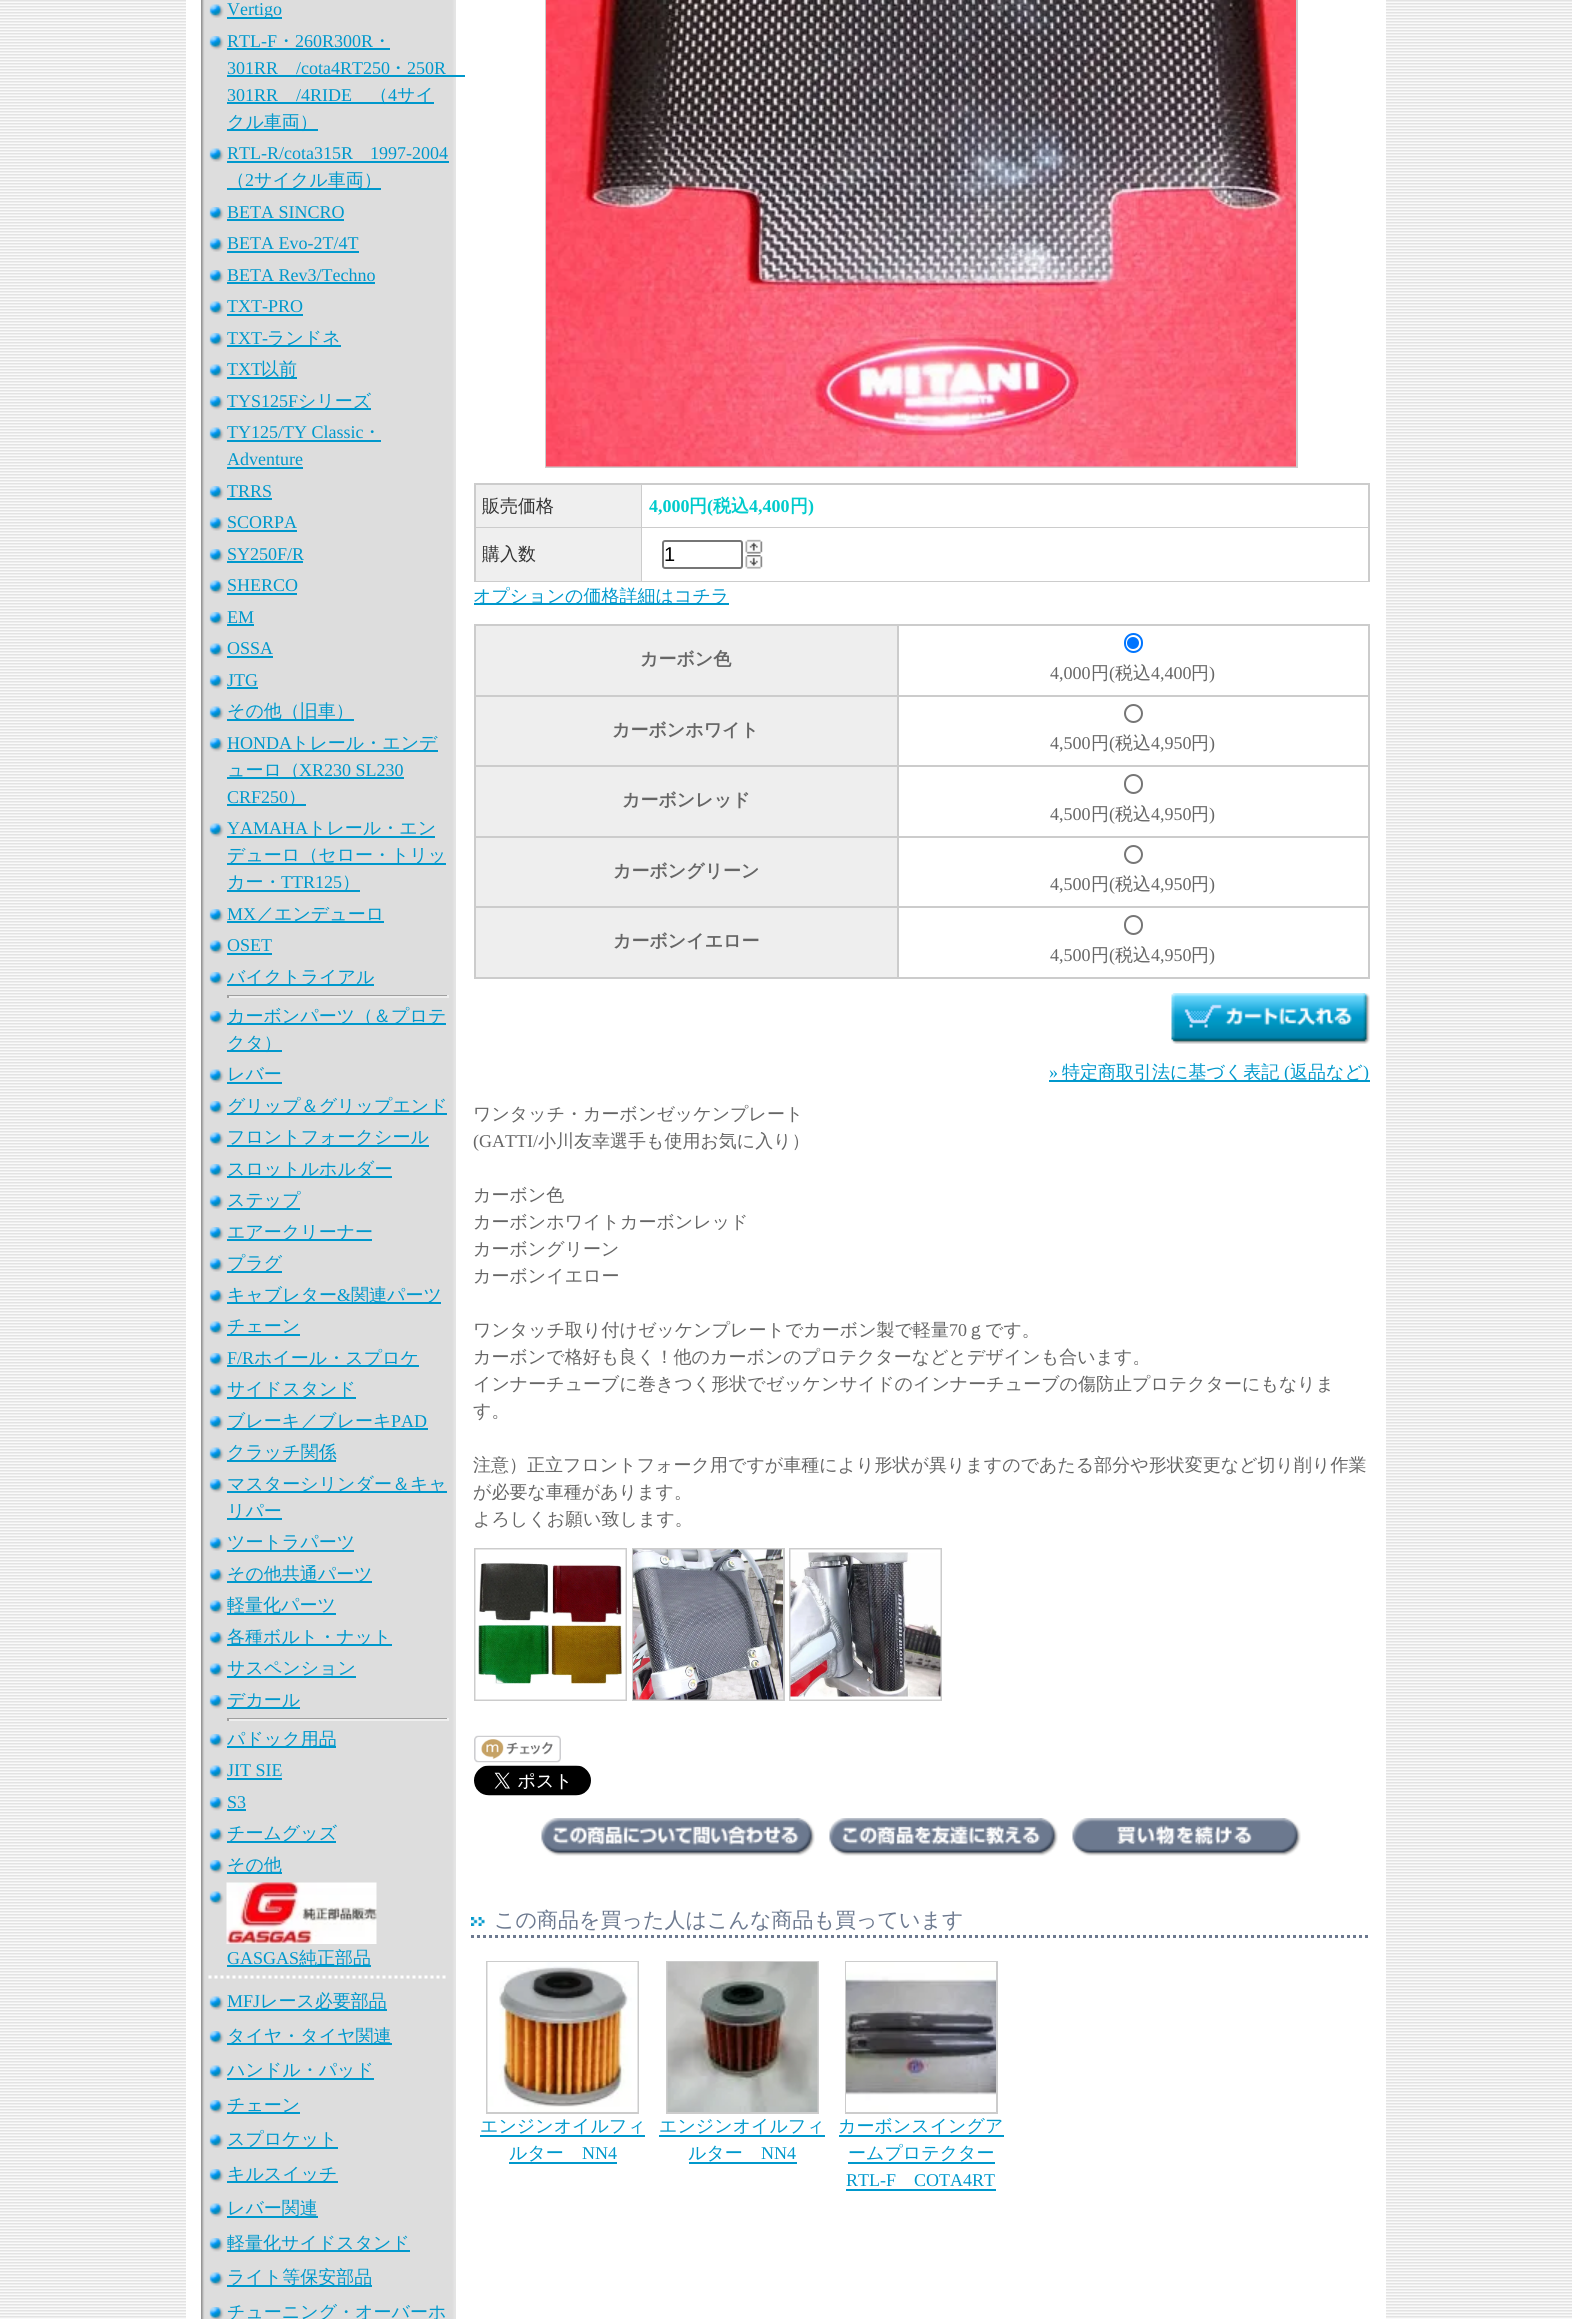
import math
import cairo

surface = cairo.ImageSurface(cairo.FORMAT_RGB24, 1572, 2319)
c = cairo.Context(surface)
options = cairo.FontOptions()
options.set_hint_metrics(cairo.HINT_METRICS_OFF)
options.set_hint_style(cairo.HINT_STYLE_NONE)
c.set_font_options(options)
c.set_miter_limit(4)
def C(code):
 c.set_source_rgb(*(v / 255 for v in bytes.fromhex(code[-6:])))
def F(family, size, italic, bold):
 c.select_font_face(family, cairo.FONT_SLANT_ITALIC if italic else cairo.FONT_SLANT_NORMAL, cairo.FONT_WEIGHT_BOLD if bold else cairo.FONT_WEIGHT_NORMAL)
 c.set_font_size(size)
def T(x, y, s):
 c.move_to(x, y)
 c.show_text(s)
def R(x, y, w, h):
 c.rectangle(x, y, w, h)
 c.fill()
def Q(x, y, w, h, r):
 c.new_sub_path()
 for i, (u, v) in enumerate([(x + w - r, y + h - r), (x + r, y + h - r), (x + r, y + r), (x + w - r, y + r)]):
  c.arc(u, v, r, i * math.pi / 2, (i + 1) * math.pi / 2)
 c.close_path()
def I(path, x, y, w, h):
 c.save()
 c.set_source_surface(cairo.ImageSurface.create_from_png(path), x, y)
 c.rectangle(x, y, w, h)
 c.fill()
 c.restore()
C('ffffff')
c.paint()
I('1.png',0,0,1572,2319)
C('ffffff')
R(186,0,1200,2319)
I('2.png',201,0,255,2319)
I('3.png',209,4,15,14)
C('0098cc')
R(227,17,55,2)
F('Liberation Serif',18,0,0)
T(227,15,'Vertigo')
I('4.png',209,36,15,14)
T(227,47,'RTL-F')
F('WenQuanYi Zen Hei Medium',18,0,0)
T(277,47,'・')
F('Liberation Serif',18,0,0)
T(295,47,'260R300R')
R(227,48,163,2)
F('WenQuanYi Zen Hei Medium',18,0,0)
T(373,47,'・')
F('Liberation Serif',18,0,0)
T(227,74,'301RR')
R(227,75,238,2)
T(296,74,'/cota4RT250')
F('WenQuanYi Zen Hei Medium',18,0,0)
T(389,74,'・')
F('Liberation Serif',18,0,0)
T(407,74,'250R')
T(227,101,'301RR')
T(296,101,'/4RIDE')
R(227,102,207,2)
F('WenQuanYi Zen Hei Medium',18,0,0)
T(370,101,'（')
F('Liberation Serif',18,0,0)
T(388,101,'4')
F('WenQuanYi Zen Hei Medium',18,0,0)
T(397,101,'サイ')
R(227,129,91,2)
T(227,128,'クル車両）')
I('3.png',209,148,15,14)
F('Liberation Serif',18,0,0)
T(227,159,'RTL-R/cota315R')
R(227,161,222,2)
T(370,159,'1997-2004')
R(227,188,154,2)
F('WenQuanYi Zen Hei Medium',18,0,0)
T(227,186,'（')
F('Liberation Serif',18,0,0)
T(245,186,'2')
F('WenQuanYi Zen Hei Medium',18,0,0)
T(254,186,'サイクル車両）')
I('4.png',209,207,15,14)
F('Liberation Serif',18,0,0)
T(227,218,'BETA SINCRO')
R(227,219,117,2)
I('3.png',209,238,15,14)
T(227,249,'BETA Evo-2T/4T')
R(227,251,132,2)
I('4.png',209,270,15,14)
T(227,281,'BETA Rev3/Techno')
R(227,282,148,2)
I('3.png',209,301,15,14)
T(227,312,'TXT-PRO')
R(227,314,76,2)
I('4.png',209,333,15,14)
T(227,344,'TXT-')
R(227,345,114,2)
F('WenQuanYi Zen Hei Medium',18,0,0)
T(267,344,'ランドネ')
I('3.png',209,364,15,14)
F('Liberation Serif',18,0,0)
T(227,375,'TXT')
R(227,377,70,2)
F('WenQuanYi Zen Hei Medium',18,0,0)
T(261,375,'以前')
I('4.png',209,396,15,14)
F('Liberation Serif',18,0,0)
T(227,407,'TYS125F')
R(227,408,144,2)
F('WenQuanYi Zen Hei Medium',18,0,0)
T(298,407,'シリーズ')
I('3.png',209,427,15,14)
F('Liberation Serif',18,0,0)
T(227,438,'TY125/TY Classic')
R(227,440,154,2)
F('WenQuanYi Zen Hei Medium',18,0,0)
T(363,438,'・')
F('Liberation Serif',18,0,0)
T(227,465,'Adventure')
R(227,467,76,2)
I('4.png',209,486,15,14)
T(227,497,'TRRS')
R(227,498,45,2)
I('3.png',209,517,15,14)
T(227,528,'SCORPA')
R(227,530,70,2)
I('4.png',209,549,15,14)
T(227,560,'SY250F/R')
R(227,561,76,2)
I('3.png',209,580,15,14)
T(227,591,'SHERCO')
R(227,593,70,2)
I('4.png',209,612,15,14)
T(227,623,'EM')
R(227,624,27,2)
I('3.png',209,643,15,14)
T(227,654,'OSSA')
R(227,656,46,2)
I('4.png',209,675,15,14)
T(227,686,'JTG')
R(227,687,31,2)
I('3.png',209,706,15,14)
R(227,719,127,2)
F('WenQuanYi Zen Hei Medium',18,0,0)
T(227,717,'その他（旧車）')
I('4.png',209,738,15,14)
F('Liberation Serif',18,0,0)
T(227,749,'HONDA')
R(227,750,211,2)
F('WenQuanYi Zen Hei Medium',18,0,0)
T(291,749,'トレール・エンデ')
R(227,777,177,2)
T(227,776,'ューロ（')
F('Liberation Serif',18,0,0)
T(299,776,'XR230 SL230')
T(227,803,'CRF250')
R(227,804,79,2)
F('WenQuanYi Zen Hei Medium',18,0,0)
T(288,803,'）')
I('3.png',209,823,15,14)
F('Liberation Serif',18,0,0)
T(227,834,'YAMAHA')
R(227,836,208,2)
F('WenQuanYi Zen Hei Medium',18,0,0)
T(308,834,'トレール・エン')
R(227,863,219,2)
T(227,861,'デューロ（セロー・トリッ')
T(227,888,'カー・')
F('Liberation Serif',18,0,0)
T(281,888,'TTR125')
R(227,890,133,2)
F('WenQuanYi Zen Hei Medium',18,0,0)
T(342,888,'）')
I('4.png',209,909,15,14)
F('Liberation Serif',18,0,0)
T(227,920,'MX')
R(227,921,157,2)
F('WenQuanYi Zen Hei Medium',18,0,0)
T(256,920,'／エンデューロ')
I('3.png',209,940,15,14)
F('Liberation Serif',18,0,0)
T(227,951,'OSET')
R(227,953,45,2)
I('4.png',209,972,15,14)
R(227,984,147,2)
F('WenQuanYi Zen Hei Medium',18,0,0)
T(227,983,'バイクトライアル')
C('9f9f9f')
R(227,995,222,1)
C('eeeeee')
R(447,995,2,3)
R(227,996,222,2)
C('9f9f9f')
R(227,995,2,3)
I('4.png',209,1011,15,14)
C('0098cc')
R(227,1023,219,2)
T(227,1022,'カーボンパーツ（＆プロテ')
R(227,1050,55,2)
T(227,1049,'クタ）')
I('3.png',209,1069,15,14)
T(227,1080,'レバー')
R(227,1082,55,2)
I('4.png',209,1101,15,14)
R(227,1113,220,2)
T(227,1112,'グリップ＆グリップエンド')
I('3.png',209,1132,15,14)
R(227,1145,202,2)
T(227,1143,'フロントフォークシール')
I('4.png',209,1164,15,14)
R(227,1176,165,2)
T(227,1175,'スロットルホルダー')
I('3.png',209,1195,15,14)
R(227,1208,73,2)
T(227,1206,'ステップ')
I('4.png',209,1227,15,14)
R(227,1239,145,2)
T(227,1238,'エアークリーナー')
I('3.png',209,1258,15,14)
R(227,1271,55,2)
T(227,1269,'プラグ')
I('4.png',209,1290,15,14)
R(227,1302,214,2)
T(227,1301,'キャブレター')
F('Liberation Serif',18,0,0)
T(337,1301,'&')
F('WenQuanYi Zen Hei Medium',18,0,0)
T(351,1301,'関連パーツ')
I('3.png',209,1321,15,14)
R(227,1334,73,2)
T(227,1332,'チェーン')
I('4.png',209,1353,15,14)
F('Liberation Serif',18,0,0)
T(227,1364,'F/R')
R(227,1365,192,2)
F('WenQuanYi Zen Hei Medium',18,0,0)
T(254,1364,'ホイール・スプロケ')
I('3.png',209,1384,15,14)
R(227,1397,129,2)
T(227,1395,'サイドスタンド')
I('4.png',209,1416,15,14)
R(227,1428,201,2)
T(227,1427,'ブレーキ／ブレーキ')
F('Liberation Serif',18,0,0)
T(391,1427,'PAD')
I('3.png',209,1447,15,14)
R(227,1460,109,2)
F('WenQuanYi Zen Hei Medium',18,0,0)
T(227,1458,'クラッチ関係')
I('4.png',209,1479,15,14)
R(227,1491,220,2)
T(227,1490,'マスターシリンダー＆キャ')
R(227,1518,55,2)
T(227,1517,'リパー')
I('3.png',209,1537,15,14)
R(227,1550,127,2)
T(227,1548,'ツートラパーツ')
I('4.png',209,1569,15,14)
R(227,1581,145,2)
T(227,1580,'その他共通パーツ')
I('3.png',209,1600,15,14)
R(227,1613,109,2)
T(227,1611,'軽量化パーツ')
I('4.png',209,1632,15,14)
R(227,1644,165,2)
T(227,1643,'各種ボルト・ナット')
I('3.png',209,1663,15,14)
R(227,1676,129,2)
T(227,1674,'サスペンション')
I('4.png',209,1695,15,14)
R(227,1707,73,2)
T(227,1706,'デカール')
C('9f9f9f')
R(227,1718,222,1)
C('eeeeee')
R(447,1718,2,3)
R(227,1719,222,2)
C('9f9f9f')
R(227,1718,2,3)
I('4.png',209,1734,15,14)
C('0098cc')
R(227,1746,109,2)
T(227,1745,'パドック用品')
I('3.png',209,1765,15,14)
F('Liberation Serif',18,0,0)
T(227,1776,'JIT SIE')
R(227,1778,55,2)
I('4.png',209,1797,15,14)
T(227,1808,'S3')
R(227,1809,19,2)
I('3.png',209,1828,15,14)
R(227,1841,109,2)
F('WenQuanYi Zen Hei Medium',18,0,0)
T(227,1839,'チームグッズ')
I('4.png',209,1860,15,14)
R(227,1872,55,2)
T(227,1871,'その他')
I('3.png',209,1891,15,14)
I('5.png',226,1882,151,62)
F('Liberation Serif',18,0,0)
T(227,1964,'GASGAS')
R(227,1965,144,2)
F('WenQuanYi Zen Hei Medium',18,0,0)
T(299,1964,'純正部品')
c.new_path()
c.move_to(208.5,1977)
c.line_to(448.5,1977)
C('ffffff')
c.set_line_width(3)
c.set_dash([3,3])
c.stroke()
I('3.png',209,1996,15,14)
F('Liberation Serif',18,0,0)
C('0098cc')
T(227,2007,'MFJ')
R(227,2009,160,2)
F('WenQuanYi Zen Hei Medium',18,0,0)
T(260,2007,'レース必要部品')
I('4.png',209,2031,15,14)
R(227,2043,165,2)
T(227,2042,'タイヤ・タイヤ関連')
I('3.png',209,2065,15,14)
R(227,2078,147,2)
T(227,2076,'ハンドル・パッド')
I('4.png',209,2100,15,14)
R(227,2112,73,2)
T(227,2111,'チェーン')
I('3.png',209,2134,15,14)
R(227,2147,111,2)
T(227,2145,'スプロケット')
I('4.png',209,2169,15,14)
R(227,2181,111,2)
T(227,2180,'キルスイッチ')
I('3.png',209,2203,15,14)
R(227,2216,91,2)
T(227,2214,'レバー関連')
I('4.png',209,2238,15,14)
R(227,2250,183,2)
T(227,2249,'軽量化サイドスタンド')
I('3.png',209,2272,15,14)
R(227,2285,145,2)
T(227,2283,'ライト等保安部品')
I('6.png',209,2307,15,12)
T(227,2318,'チューニング・オーバーホ')
c.rectangle(546,-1,751,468)
C('cccccc')
c.set_line_width(2)
c.set_dash([])
c.stroke()
I('7.png',546,0,750,467)
R(474,483,896,99)
C('efefef')
R(476,485,165,42)
C('333333')
T(482,512,'販売価格')
C('ffffff')
R(642,485,726,42)
F('Liberation Serif',18,0,1)
C('00cbcc')
T(649,512,'4,000')
F('WenQuanYi Zen Hei',18,0,1)
T(689,512,'円')
F('Liberation Serif',18,0,1)
T(707,512,'(')
F('WenQuanYi Zen Hei',18,0,1)
T(713,512,'税込')
F('Liberation Serif',18,0,1)
T(749,512,'4,400')
F('WenQuanYi Zen Hei',18,0,1)
T(790,512,'円')
F('Liberation Serif',18,0,1)
T(808,512,')')
C('efefef')
R(476,528,165,53)
F('WenQuanYi Zen Hei Medium',18,0,0)
C('333333')
T(482,560,'購入数')
C('ffffff')
R(642,528,726,53)
Q(663,541,79,27,2)
C('767676')
c.stroke()
F('Liberation Sans',20,0,0)
C('000000')
T(664,561,'1')
I('8.png',745,539,18,15)
I('9.png',745,555,18,14)
C('0098cc')
R(474,603,255,2)
F('WenQuanYi Zen Hei Medium',18,0,0)
T(473,602,'オプションの価格詳細はコチラ')
C('cccccc')
R(474,624,896,2)
R(474,624,2,354)
C('eeeeee')
R(476,626,421,69)
C('cccccc')
R(1368,624,2,354)
R(897,977,473,2)
R(897,906,2,72)
R(897,906,473,2)
R(897,836,2,72)
R(897,836,473,2)
R(897,765,2,72)
R(897,765,473,2)
R(897,695,2,72)
R(897,695,473,2)
R(897,624,2,72)
R(474,695,425,2)
F('WenQuanYi Zen Hei',18,0,1)
C('666666')
T(640,665,'カーボン色')
Q(1125,634,17,18,8.5)
C('0075ff')
c.stroke()
c.arc(1133,643,6,0,2 * math.pi)
c.fill()
F('Liberation Serif',18,0,0)
C('666666')
T(1050,679,'4,000')
F('WenQuanYi Zen Hei Medium',18,0,0)
T(1091,679,'円')
F('Liberation Serif',18,0,0)
T(1109,679,'(')
F('WenQuanYi Zen Hei Medium',18,0,0)
T(1115,679,'税込')
F('Liberation Serif',18,0,0)
T(1151,679,'4,400')
F('WenQuanYi Zen Hei Medium',18,0,0)
T(1191,679,'円')
F('Liberation Serif',18,0,0)
T(1209,679,')')
C('eeeeee')
R(476,697,421,68)
C('cccccc')
R(474,765,425,2)
F('WenQuanYi Zen Hei',18,0,1)
C('666666')
T(612,736,'カーボンホワイト')
c.new_path()
c.arc(1133.5,713.5,8.5,0,2 * math.pi)
C('767676')
c.stroke()
F('Liberation Serif',18,0,0)
C('666666')
T(1050,749,'4,500')
F('WenQuanYi Zen Hei Medium',18,0,0)
T(1091,749,'円')
F('Liberation Serif',18,0,0)
T(1109,749,'(')
F('WenQuanYi Zen Hei Medium',18,0,0)
T(1115,749,'税込')
F('Liberation Serif',18,0,0)
T(1151,749,'4,950')
F('WenQuanYi Zen Hei Medium',18,0,0)
T(1191,749,'円')
F('Liberation Serif',18,0,0)
T(1209,749,')')
C('eeeeee')
R(476,767,421,69)
C('cccccc')
R(474,836,425,2)
F('WenQuanYi Zen Hei',18,0,1)
C('666666')
T(622,806,'カーボンレッド')
Q(1125,775,17,18,8.5)
C('767676')
c.stroke()
F('Liberation Serif',18,0,0)
C('666666')
T(1050,820,'4,500')
F('WenQuanYi Zen Hei Medium',18,0,0)
T(1091,820,'円')
F('Liberation Serif',18,0,0)
T(1109,820,'(')
F('WenQuanYi Zen Hei Medium',18,0,0)
T(1115,820,'税込')
F('Liberation Serif',18,0,0)
T(1151,820,'4,950')
F('WenQuanYi Zen Hei Medium',18,0,0)
T(1191,820,'円')
F('Liberation Serif',18,0,0)
T(1209,820,')')
C('eeeeee')
R(476,838,421,68)
C('cccccc')
R(474,906,425,2)
F('WenQuanYi Zen Hei',18,0,1)
C('666666')
T(613,877,'カーボングリーン')
c.new_path()
c.arc(1133.5,854.5,8.5,0,2 * math.pi)
C('767676')
c.stroke()
F('Liberation Serif',18,0,0)
C('666666')
T(1050,890,'4,500')
F('WenQuanYi Zen Hei Medium',18,0,0)
T(1091,890,'円')
F('Liberation Serif',18,0,0)
T(1109,890,'(')
F('WenQuanYi Zen Hei Medium',18,0,0)
T(1115,890,'税込')
F('Liberation Serif',18,0,0)
T(1151,890,'4,950')
F('WenQuanYi Zen Hei Medium',18,0,0)
T(1191,890,'円')
F('Liberation Serif',18,0,0)
T(1209,890,')')
C('eeeeee')
R(476,908,421,69)
C('cccccc')
R(474,977,425,2)
F('WenQuanYi Zen Hei',18,0,1)
C('666666')
T(613,947,'カーボンイエロー')
Q(1125,916,17,18,8.5)
C('767676')
c.stroke()
F('Liberation Serif',18,0,0)
C('666666')
T(1050,961,'4,500')
F('WenQuanYi Zen Hei Medium',18,0,0)
T(1091,961,'円')
F('Liberation Serif',18,0,0)
T(1109,961,'(')
F('WenQuanYi Zen Hei Medium',18,0,0)
T(1115,961,'税込')
F('Liberation Serif',18,0,0)
T(1151,961,'4,950')
F('WenQuanYi Zen Hei Medium',18,0,0)
T(1191,961,'円')
F('Liberation Serif',18,0,0)
T(1209,961,')')
I('10.png',1171,993,199,51)
C('0098cc')
T(1049,1078,'»')
R(1049,1080,321,2)
F('WenQuanYi Zen Hei Medium',18,0,0)
T(1062,1078,'特定商取引法に基づく表記')
F('Liberation Serif',18,0,0)
T(1284,1078,'(')
F('WenQuanYi Zen Hei Medium',18,0,0)
T(1290,1078,'返品など')
F('Liberation Serif',18,0,0)
T(1363,1078,')')
F('WenQuanYi Zen Hei Medium',18,0,0)
C('666666')
T(473,1120,'ワンタッチ・カーボンゼッケンプレート')
F('Liberation Serif',18,0,0)
T(473,1147,'(GATTI/')
F('WenQuanYi Zen Hei Medium',18,0,0)
T(538,1147,'小川友幸選手も使用お気に入り）')
T(473,1201,'カーボン色')
T(473,1228,'カーボンホワイトカーボンレッド')
T(473,1255,'カーボングリーン')
T(473,1282,'カーボンイエロー')
T(473,1336,'ワンタッチ取り付けゼッケンプレートでカーボン製で軽量')
F('Liberation Serif',18,0,0)
T(949,1336,'70')
F('WenQuanYi Zen Hei Medium',18,0,0)
T(967,1336,'ｇです。')
T(473,1363,'カーボンで格好も良く！他のカーボンのプロテクターなどとデザインも合います。')
T(473,1390,'インナーチューブに巻きつく形状でゼッケンサイドのインナーチューブの傷防止プロテクターにもなりま')
T(473,1417,'す。')
T(473,1471,'注意）正立フロントフォーク用ですが車種により形状が異りますのであたる部分や形状変更など切り削り作業')
T(473,1498,'が必要な車種があります。')
T(473,1525,'よろしくお願い致します。')
c.rectangle(475,1549,151,151)
C('cccccc')
c.stroke()
c.rectangle(633,1549,151,151)
c.stroke()
c.rectangle(790,1549,151,151)
c.stroke()
I('11.png',475,1549,151,151)
I('12.png',633,1549,150,151)
I('13.png',790,1549,151,151)
I('14.png',474,1735,87,28)
I('15.png',474,1765,117,31)
I('16.png',541,1818,274,38)
I('17.png',829,1818,229,38)
I('18.png',1072,1818,229,38)
I('19.png',471,1917,14,9)
c.new_path()
c.move_to(471,1936.5)
c.line_to(1371,1936.5)
C('6c798f')
c.set_line_width(3)
c.set_dash([3,3])
c.stroke()
F('WenQuanYi Zen Hei Medium',21,0,0)
T(494,1927,'この商品を買った人はこんな商品も買っています')
c.rectangle(487,1962,151,151)
C('cccccc')
c.set_line_width(2)
c.set_dash([])
c.stroke()
I('20.png',487,1962,151,150)
F('WenQuanYi Zen Hei Medium',18,0,0)
C('0098cc')
T(480,2132,'エンジンオイルフィ')
R(480,2135,165,2)
T(509,2159,'ルター')
R(509,2162,108,2)
F('Liberation Serif',18,0,0)
T(582,2159,'NN4')
c.rectangle(667,1962,151,151)
C('cccccc')
c.stroke()
I('21.png',667,1962,151,150)
F('WenQuanYi Zen Hei Medium',18,0,0)
C('0098cc')
T(659,2132,'エンジンオイルフィ')
R(659,2135,166,2)
T(688,2159,'ルター')
R(689,2162,108,2)
F('Liberation Serif',18,0,0)
T(761,2159,'NN4')
c.rectangle(846,1962,151,151)
C('cccccc')
c.stroke()
I('22.png',846,1962,150,150)
F('WenQuanYi Zen Hei Medium',18,0,0)
C('0098cc')
T(838,2132,'カーボンスイングア')
R(839,2135,165,2)
T(848,2159,'ームプロテクター')
R(848,2162,147,2)
F('Liberation Serif',18,0,0)
T(846,2186,'RTL-F')
T(914,2186,'COTA4RT')
R(846,2189,150,2)
surface.write_to_png('o.png')
